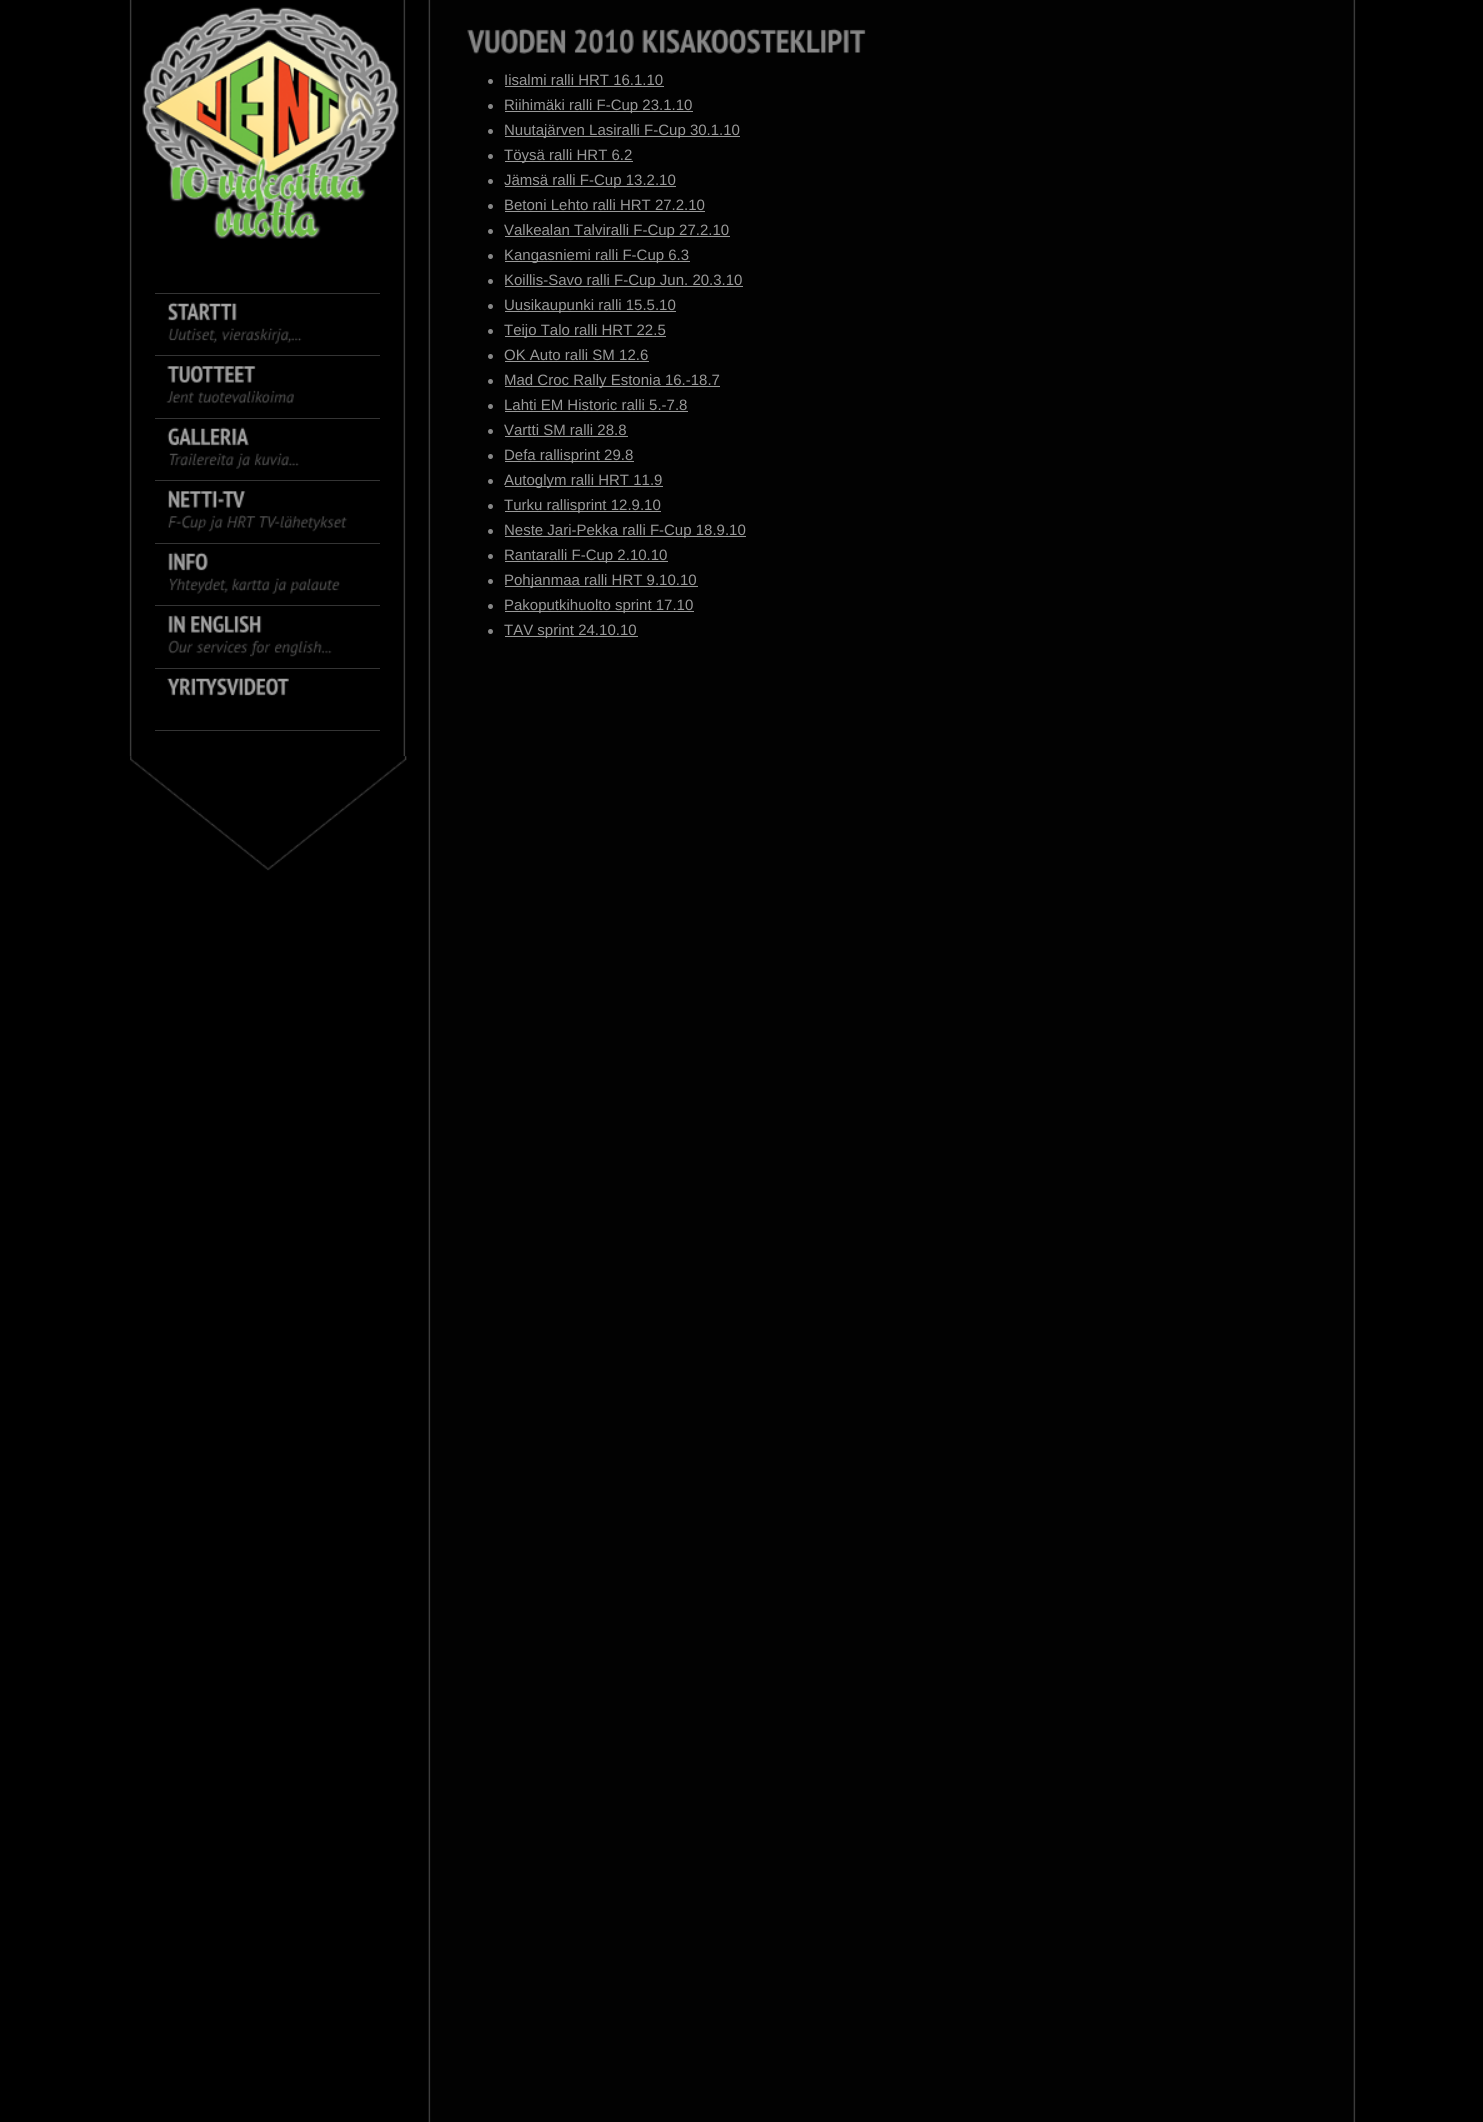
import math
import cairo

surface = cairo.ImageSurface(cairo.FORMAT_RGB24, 1483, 2122)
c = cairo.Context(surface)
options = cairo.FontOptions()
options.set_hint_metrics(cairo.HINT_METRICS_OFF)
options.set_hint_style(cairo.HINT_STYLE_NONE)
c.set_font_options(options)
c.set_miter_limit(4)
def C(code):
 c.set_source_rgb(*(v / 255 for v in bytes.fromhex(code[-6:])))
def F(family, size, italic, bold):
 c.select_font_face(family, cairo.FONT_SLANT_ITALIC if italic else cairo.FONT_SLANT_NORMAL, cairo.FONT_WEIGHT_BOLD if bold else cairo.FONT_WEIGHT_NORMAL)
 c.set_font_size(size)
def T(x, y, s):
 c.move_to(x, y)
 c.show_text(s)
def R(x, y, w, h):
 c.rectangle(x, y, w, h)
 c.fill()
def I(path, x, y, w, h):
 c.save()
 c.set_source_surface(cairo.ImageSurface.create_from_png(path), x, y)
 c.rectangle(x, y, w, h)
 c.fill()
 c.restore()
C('000000')
c.paint()
I('1.png',129,0,277,757)
I('2.png',142,7,257,232)
C('343434')
R(155,293,225,1)
R(155,355,225,1)
I('3.png',167,302,70,19)
I('4.png',168,328,49,15)
I('5.png',222,328,80,16)
R(155,418,225,1)
I('6.png',167,365,89,18)
I('7.png',166,391,28,13)
I('8.png',198,390,96,14)
R(155,480,225,1)
I('9.png',167,427,82,19)
I('10.png',169,453,65,14)
I('11.png',236,453,15,16)
I('12.png',254,452,45,14)
R(155,543,225,1)
I('13.png',168,490,78,18)
I('14.png',168,515,39,17)
I('15.png',208,515,15,17)
I('16.png',227,515,29,13)
I('17.png',259,516,89,16)
R(155,605,225,1)
I('18.png',168,552,40,19)
I('19.png',169,578,59,16)
I('20.png',232,578,38,14)
I('21.png',272,578,15,16)
I('22.png',290,578,50,16)
R(155,668,225,1)
I('23.png',168,615,18,18)
I('24.png',191,615,71,18)
I('25.png',168,640,25,14)
I('26.png',196,640,52,14)
I('27.png',250,640,21,17)
I('28.png',274,640,58,17)
R(155,730,225,1)
I('29.png',167,677,122,19)
I('30.png',130,756,277,115)
I('31.png',428,0,928,2122)
I('32.png',467,28,99,26)
I('33.png',574,28,60,26)
I('34.png',642,28,224,26)
C('888888')
c.arc(490.5,81.5,2.5,0,2 * math.pi)
c.fill()
F('Liberation Sans',15,0,0)
C('999999')
T(504,85,'Iisalmi ralli HRT 16.1.10')
R(505,86,159,1)
C('888888')
c.new_path()
c.arc(490.5,106.5,2.5,0,2 * math.pi)
c.fill()
C('999999')
R(505,111,188,1)
T(504,110,'Riihimäki ralli F-Cup 23.1.10')
C('888888')
c.new_path()
c.arc(490.5,131.5,2.5,0,2 * math.pi)
c.fill()
C('999999')
R(505,136,235,1)
T(504,135,'Nuutajärven Lasiralli F-Cup 30.1.10')
C('888888')
c.new_path()
c.arc(490.5,156.5,2.5,0,2 * math.pi)
c.fill()
C('999999')
R(505,161,128,1)
T(504,160,'Töysä ralli HRT 6.2')
C('888888')
c.new_path()
c.arc(490.5,181.5,2.5,0,2 * math.pi)
c.fill()
C('999999')
R(505,186,171,1)
T(504,185,'Jämsä ralli F-Cup 13.2.10')
C('888888')
c.new_path()
c.arc(490.5,206.5,2.5,0,2 * math.pi)
c.fill()
C('999999')
T(504,210,'Betoni Lehto ralli HRT 27.2.10')
R(505,211,200,1)
C('888888')
c.new_path()
c.arc(490.5,231.5,2.5,0,2 * math.pi)
c.fill()
C('999999')
R(505,236,225,1)
T(504,235,'Valkealan Talviralli F-Cup 27.2.10')
C('888888')
c.new_path()
c.arc(490.5,256.5,2.5,0,2 * math.pi)
c.fill()
C('999999')
R(505,261,185,1)
T(504,260,'Kangasniemi ralli F-Cup 6.3')
C('888888')
c.new_path()
c.arc(490.5,281.5,2.5,0,2 * math.pi)
c.fill()
C('999999')
R(505,286,238,1)
T(504,285,'Koillis-Savo ralli F-Cup Jun. 20.3.10')
C('888888')
c.new_path()
c.arc(490.5,306.5,2.5,0,2 * math.pi)
c.fill()
C('999999')
R(505,311,171,1)
T(504,310,'Uusikaupunki ralli 15.5.10')
C('888888')
c.new_path()
c.arc(490.5,331.5,2.5,0,2 * math.pi)
c.fill()
C('999999')
R(505,336,161,1)
T(504,335,'Teijo Talo ralli HRT 22.5')
C('888888')
c.new_path()
c.arc(490.5,356.5,2.5,0,2 * math.pi)
c.fill()
C('999999')
T(504,360,'OK Auto ralli SM 12.6')
R(505,361,144,1)
C('888888')
c.new_path()
c.arc(490.5,381.5,2.5,0,2 * math.pi)
c.fill()
C('999999')
R(505,386,215,1)
T(504,385,'Mad Croc Rally Estonia 16.-18.7')
C('888888')
c.new_path()
c.arc(490.5,406.5,2.5,0,2 * math.pi)
c.fill()
C('999999')
T(504,410,'Lahti EM Historic ralli 5.-7.8')
R(505,411,183,1)
C('888888')
c.new_path()
c.arc(490.5,431.5,2.5,0,2 * math.pi)
c.fill()
C('999999')
T(504,435,'Vartti SM ralli 28.8')
R(505,436,123,1)
C('888888')
c.new_path()
c.arc(490.5,456.5,2.5,0,2 * math.pi)
c.fill()
C('999999')
R(505,461,129,1)
T(504,460,'Defa rallisprint 29.8')
C('888888')
c.new_path()
c.arc(490.5,481.5,2.5,0,2 * math.pi)
c.fill()
C('999999')
R(505,486,158,1)
T(504,485,'Autoglym ralli HRT 11.9')
C('888888')
c.new_path()
c.arc(490.5,506.5,2.5,0,2 * math.pi)
c.fill()
C('999999')
R(505,511,156,1)
T(504,510,'Turku rallisprint 12.9.10')
C('888888')
c.new_path()
c.arc(490.5,531.5,2.5,0,2 * math.pi)
c.fill()
C('999999')
R(505,536,241,1)
T(504,535,'Neste Jari-Pekka ralli F-Cup 18.9.10')
C('888888')
c.new_path()
c.arc(490.5,556.5,2.5,0,2 * math.pi)
c.fill()
C('999999')
R(505,561,163,1)
T(504,560,'Rantaralli F-Cup 2.10.10')
C('888888')
c.new_path()
c.arc(490.5,581.5,2.5,0,2 * math.pi)
c.fill()
C('999999')
R(505,586,193,1)
T(504,585,'Pohjanmaa ralli HRT 9.10.10')
C('888888')
c.new_path()
c.arc(490.5,606.5,2.5,0,2 * math.pi)
c.fill()
C('999999')
R(505,611,189,1)
T(504,610,'Pakoputkihuolto sprint 17.10')
C('888888')
c.new_path()
c.arc(490.5,631.5,2.5,0,2 * math.pi)
c.fill()
C('999999')
R(505,636,133,1)
T(504,635,'TAV sprint 24.10.10')
surface.write_to_png('o.png')
